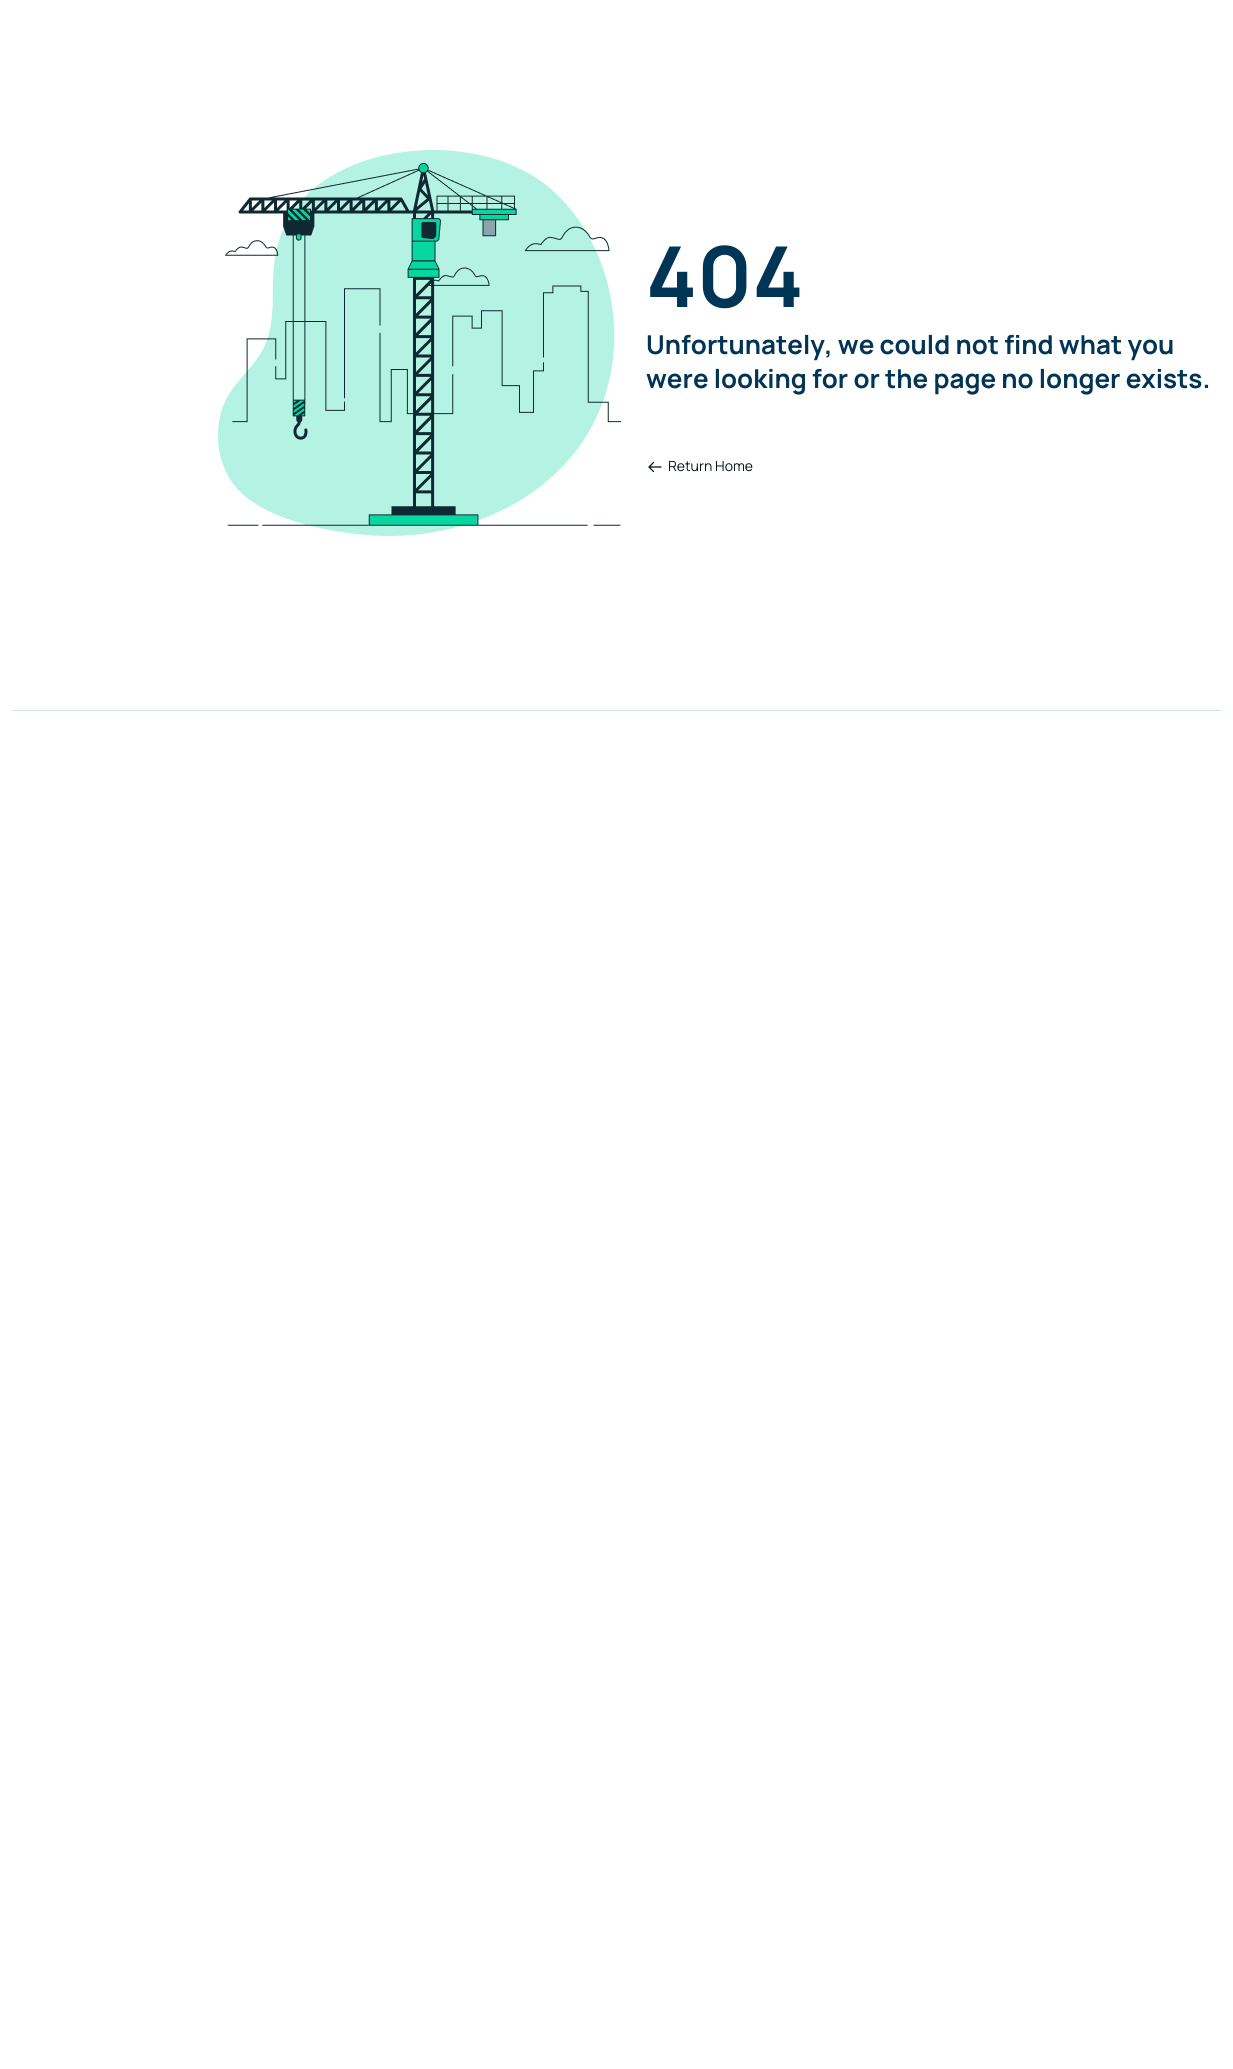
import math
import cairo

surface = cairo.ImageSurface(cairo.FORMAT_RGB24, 1233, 2069)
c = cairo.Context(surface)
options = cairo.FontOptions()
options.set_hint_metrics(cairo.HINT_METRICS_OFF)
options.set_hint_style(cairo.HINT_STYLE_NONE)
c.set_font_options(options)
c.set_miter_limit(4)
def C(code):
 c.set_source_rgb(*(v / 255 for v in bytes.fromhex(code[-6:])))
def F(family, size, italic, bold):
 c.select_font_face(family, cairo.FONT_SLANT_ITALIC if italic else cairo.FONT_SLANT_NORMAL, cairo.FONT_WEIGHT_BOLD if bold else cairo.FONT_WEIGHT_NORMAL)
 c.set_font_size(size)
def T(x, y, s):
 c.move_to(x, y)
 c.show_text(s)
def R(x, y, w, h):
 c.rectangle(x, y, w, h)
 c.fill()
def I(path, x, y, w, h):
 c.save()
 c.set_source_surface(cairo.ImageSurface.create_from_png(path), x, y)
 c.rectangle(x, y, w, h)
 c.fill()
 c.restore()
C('ffffff')
c.paint()
I('1.png',218,150,403,386)
F('Manrope ExtraLight',84,0,0)
C('013556')
T(646,307,'404')
F('Manrope ExtraLight',26,0,0)
T(646,354,'Unfortunately, we could not find what you')
T(646,388,'were looking for or the page no longer exists.')
c.new_path()
c.move_to(653.5,471.5)
c.line_to(649,467)
c.move_to(649,467)
c.line_to(653.5,462.5)
c.move_to(649,467)
c.line_to(661,467)
C('071920')
c.set_line_width(1.3)
c.set_line_cap(cairo.LINE_CAP_ROUND)
c.set_line_join(cairo.LINE_JOIN_ROUND)
c.stroke()
F('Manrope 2 ExtraLight',14,0,0)
T(668,471,'Return Home')
C('cde2e7')
R(12,710,1209,1)
surface.write_to_png('o.png')
